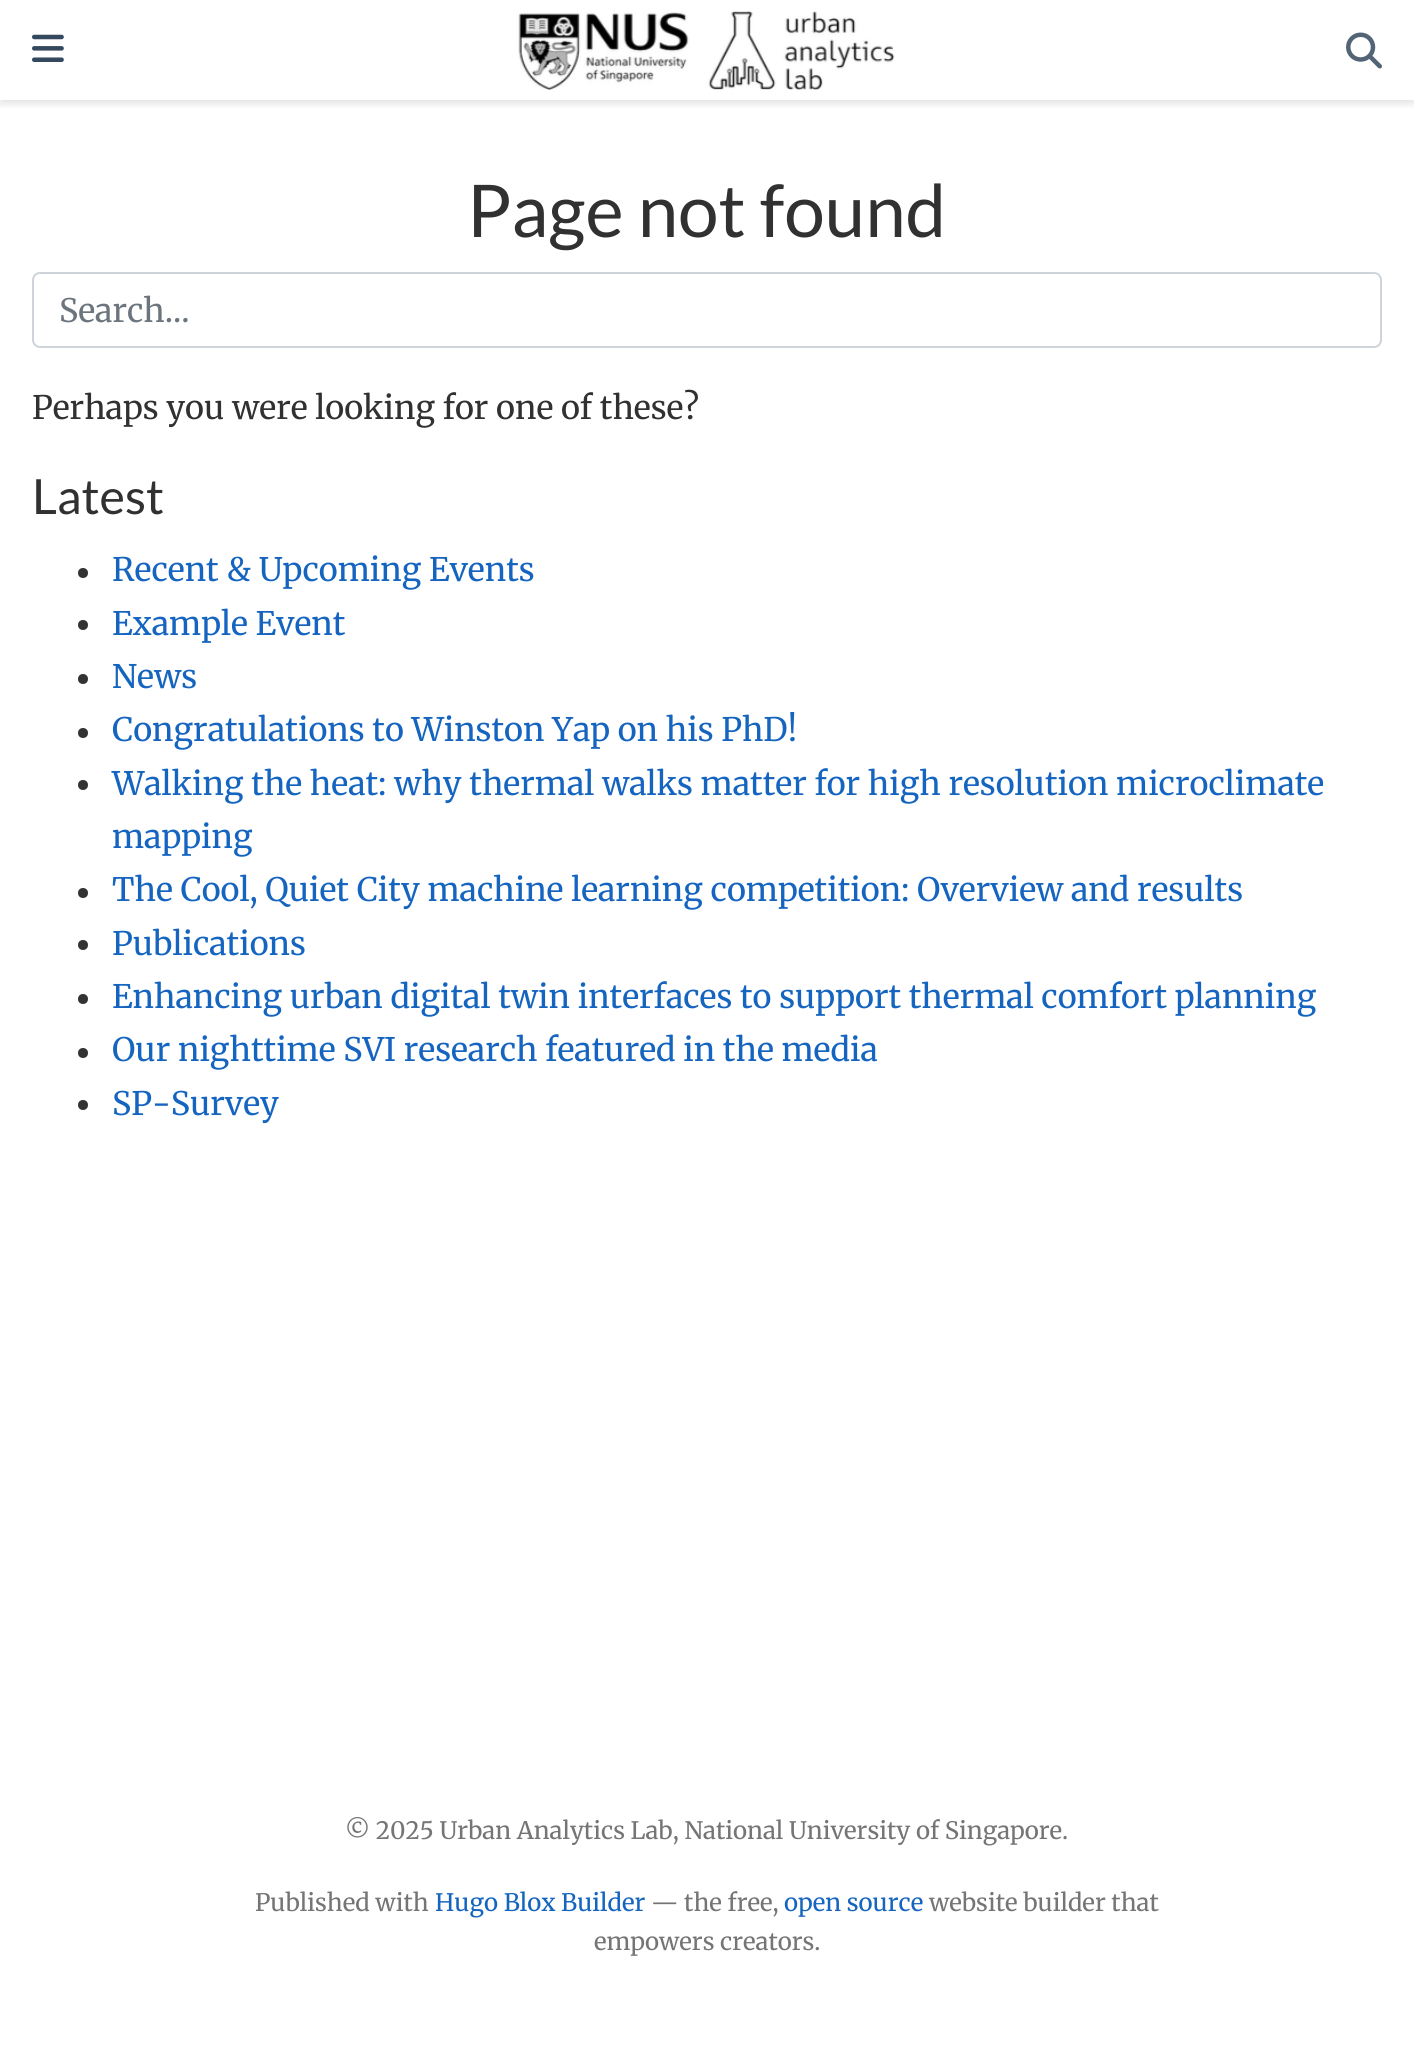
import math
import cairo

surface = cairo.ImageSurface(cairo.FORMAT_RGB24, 1414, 2062)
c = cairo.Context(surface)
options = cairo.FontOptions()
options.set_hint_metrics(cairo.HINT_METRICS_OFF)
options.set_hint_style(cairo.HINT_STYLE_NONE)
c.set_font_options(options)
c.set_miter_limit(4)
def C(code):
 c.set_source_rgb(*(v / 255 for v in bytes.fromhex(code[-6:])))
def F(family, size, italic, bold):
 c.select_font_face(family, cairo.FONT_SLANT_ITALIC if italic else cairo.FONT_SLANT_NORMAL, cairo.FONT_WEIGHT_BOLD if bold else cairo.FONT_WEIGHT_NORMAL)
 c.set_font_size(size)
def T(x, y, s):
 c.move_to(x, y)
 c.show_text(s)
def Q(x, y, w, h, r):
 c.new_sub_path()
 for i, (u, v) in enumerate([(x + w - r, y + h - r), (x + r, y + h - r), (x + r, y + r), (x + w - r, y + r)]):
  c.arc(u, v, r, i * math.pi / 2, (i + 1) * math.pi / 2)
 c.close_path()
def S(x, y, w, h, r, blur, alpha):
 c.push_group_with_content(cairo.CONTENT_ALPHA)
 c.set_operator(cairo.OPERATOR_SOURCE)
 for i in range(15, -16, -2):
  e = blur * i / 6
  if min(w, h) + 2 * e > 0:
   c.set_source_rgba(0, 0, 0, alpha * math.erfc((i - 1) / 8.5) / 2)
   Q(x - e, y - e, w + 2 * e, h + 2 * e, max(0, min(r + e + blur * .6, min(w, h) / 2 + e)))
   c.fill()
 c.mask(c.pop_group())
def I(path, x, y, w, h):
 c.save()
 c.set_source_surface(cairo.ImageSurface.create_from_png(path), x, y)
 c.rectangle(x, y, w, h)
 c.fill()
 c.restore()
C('ffffff')
c.paint()
c.save()
c.rectangle(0,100,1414,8)
c.clip()
C('000000')
S(0,4,1414,100,0,4,.11)
c.restore()
I('1.png',32,34,32,28)
I('2.png',518,11,377,79)
I('3.png',1346,32,36,37)
F('Lato',72.75,0,0)
C('313131')
T(467,237,'Page not found')
Q(33,273,1348,74,7)
C('ced4da')
c.stroke()
F('Merriweather Light',32.35,0,0)
C('6c757d')
T(59,322,'Search...')
C('313131')
T(32,419,'Perhaps you were looking for one of these?')
F('Lato',48.5,0,0)
T(32,514,'Latest')
C('333333')
c.new_path()
c.arc(83,573,5,0,2 * math.pi)
c.fill()
F('Merriweather Light',32.35,0,0)
C('1565c0')
T(112,581,'Recent & Upcoming Events')
C('333333')
c.new_path()
c.arc(83,625,5,0,2 * math.pi)
c.fill()
C('1565c0')
T(112,635,'Example Event')
C('333333')
c.new_path()
c.arc(83,679,5,0,2 * math.pi)
c.fill()
C('1565c0')
T(112,688,'News')
C('333333')
c.new_path()
c.arc(83,733,5,0,2 * math.pi)
c.fill()
C('1565c0')
T(112,741,'Congratulations to Winston Yap on his PhD!')
C('333333')
c.new_path()
c.arc(83,785,5,0,2 * math.pi)
c.fill()
C('1565c0')
T(112,795,'Walking the heat: why thermal walks matter for high resolution microclimate')
T(112,848,'mapping')
C('333333')
c.new_path()
c.arc(83,893,5,0,2 * math.pi)
c.fill()
C('1565c0')
T(112,901,'The Cool, Quiet City machine learning competition: Overview and results')
C('333333')
c.new_path()
c.arc(83,945,5,0,2 * math.pi)
c.fill()
C('1565c0')
T(112,955,'Publications')
C('333333')
c.new_path()
c.arc(83,999,5,0,2 * math.pi)
c.fill()
C('1565c0')
T(112,1008,'Enhancing urban digital twin interfaces to support thermal comfort planning')
C('333333')
c.new_path()
c.arc(83,1053,5,0,2 * math.pi)
c.fill()
C('1565c0')
T(112,1061,'Our nighttime SVI research featured in the media')
C('333333')
c.new_path()
c.arc(83,1105,5,0,2 * math.pi)
c.fill()
C('1565c0')
T(112,1115,'SP-Survey')
F('Merriweather Light',24,0,0)
C('757575')
T(345,1839,'© 2025 Urban Analytics Lab, National University of Singapore.')
T(255,1911,'Published with')
C('1565c0')
T(435,1911,'Hugo Blox Builder')
C('757575')
T(651,1911,'— the free,')
C('1565c0')
T(784,1911,'open source')
C('757575')
T(929,1911,'website builder that')
T(594,1950,'empowers creators.')
surface.write_to_png('o.png')
